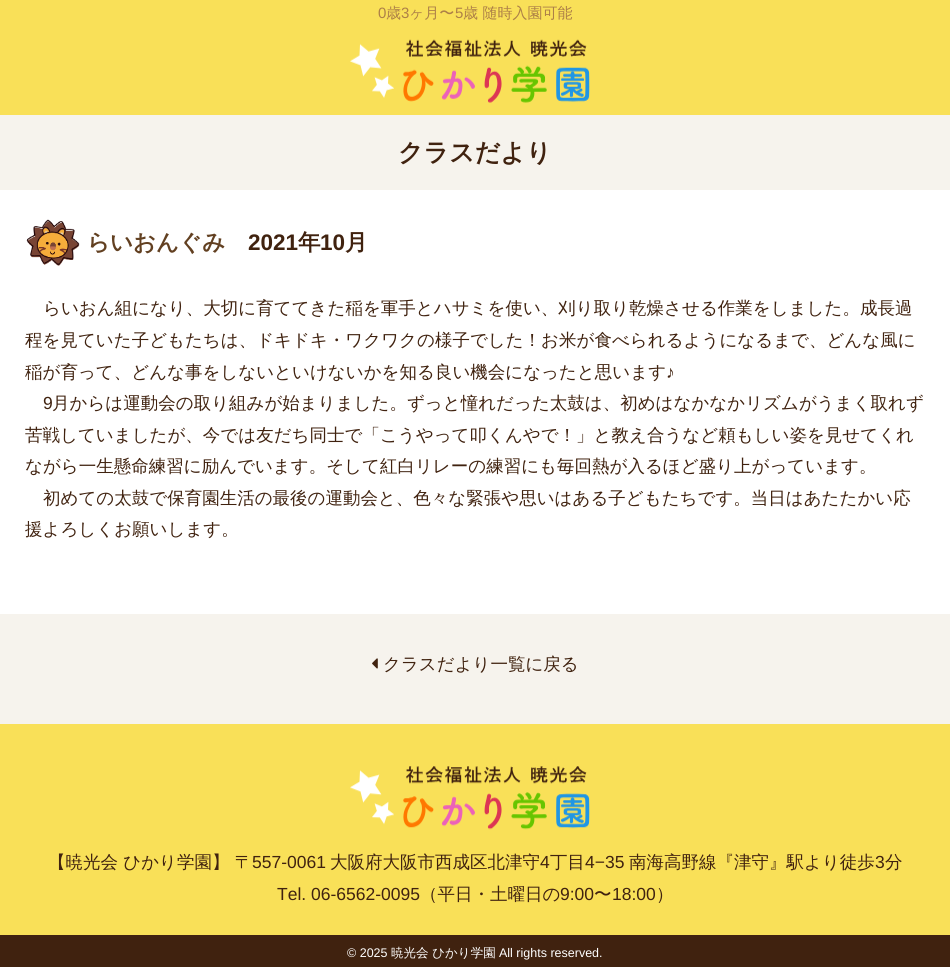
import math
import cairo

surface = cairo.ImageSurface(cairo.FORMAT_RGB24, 950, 967)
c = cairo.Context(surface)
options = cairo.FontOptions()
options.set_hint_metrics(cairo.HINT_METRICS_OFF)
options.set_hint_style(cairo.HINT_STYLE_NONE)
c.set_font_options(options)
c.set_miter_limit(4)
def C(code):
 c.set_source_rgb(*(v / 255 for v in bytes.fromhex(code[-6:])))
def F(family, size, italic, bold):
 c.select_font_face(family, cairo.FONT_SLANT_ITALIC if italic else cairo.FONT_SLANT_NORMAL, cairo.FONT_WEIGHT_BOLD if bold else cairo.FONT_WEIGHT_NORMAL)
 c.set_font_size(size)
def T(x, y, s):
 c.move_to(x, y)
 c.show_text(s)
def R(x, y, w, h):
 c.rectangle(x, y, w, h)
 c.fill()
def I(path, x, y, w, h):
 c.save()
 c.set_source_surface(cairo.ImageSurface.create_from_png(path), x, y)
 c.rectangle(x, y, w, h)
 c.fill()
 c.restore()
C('f6f3ed')
c.paint()
C('f9e058')
R(0,0,950,115)
F('Liberation Sans',15,0,0)
C('ad8047')
T(378,18,'0')
F('WenQuanYi Zen Hei Medium',15,0,0)
T(386,18,'歳')
F('Liberation Sans',15,0,0)
T(401,18,'3')
F('WenQuanYi Zen Hei Medium',15,0,0)
T(409,18,'ヶ月〜')
F('Liberation Sans',15,0,0)
T(455,18,'5')
F('WenQuanYi Zen Hei Medium',15,0,0)
T(463,18,'歳 随時入園可能')
I('1.png',350,39,240,64)
F('WenQuanYi Zen Hei',25,0,1)
C('40220f')
T(398,161,'クラスだより')
C('ffffff')
R(0,190,950,424)
I('2.png',26,219,54,47)
F('WenQuanYi Zen Hei',22.5,0,1)
C('624021')
T(87,250,'らいおんぐみ')
F('Liberation Sans',22.5,0,1)
C('40220f')
T(248,250,'2021')
F('WenQuanYi Zen Hei',22.5,0,1)
T(298,250,'年')
F('Liberation Sans',22.5,0,1)
T(320,250,'10')
F('WenQuanYi Zen Hei',22.5,0,1)
T(345,250,'月')
F('WenQuanYi Zen Hei Medium',17.5,0,0)
T(43,314,'らいおん組になり、大切に育ててきた稲を軍手とハサミを使い、刈り取り乾燥させる作業をしました。成長過')
T(25,346,'程を見ていた子どもたちは、ドキドキ・ワクワクの様子でした！お米が食べられるようになるまで、どんな風に')
T(25,378,'稲が育って、どんな事をしないといけないかを知る良い機会になったと思います')
F('Liberation Sans',17.5,0,0)
T(666,378,'♪')
T(43,409,'9')
F('WenQuanYi Zen Hei Medium',17.5,0,0)
T(52,409,'月からは運動会の取り組みが始まりました。ずっと憧れだった太鼓は、初めはなかなかリズムがうまく取れず')
T(25,441,'苦戦していましたが、今では友だち同士で「こうやって叩くんやで！」と教え合うなど頼もしい姿を見せてくれ')
T(25,472,'ながら一生懸命練習に励んでいます。そして紅白リレーの練習にも毎回熱が入るほど盛り上がっています。')
T(43,504,'初めての太鼓で保育園生活の最後の運動会と、色々な緊張や思いはある子どもたちです。当日はあたたかい応')
T(25,535,'援よろしくお願いします。')
I('3.png',372,658,6,11)
T(383,670,'クラスだより一覧に戻る')
C('f9e058')
R(0,724,950,211)
I('4.png',350,766,240,64)
C('40220f')
T(48,868,'【暁光会 ひかり学園】 〒')
F('Liberation Sans',17.5,0,0)
T(252,868,'557-0061')
F('WenQuanYi Zen Hei Medium',17.5,0,0)
T(330,868,'大阪府大阪市西成区北津守')
F('Liberation Sans',17.5,0,0)
T(540,868,'4')
F('WenQuanYi Zen Hei Medium',17.5,0,0)
T(550,868,'丁目')
F('Liberation Sans',17.5,0,0)
T(585,868,'4−35')
F('WenQuanYi Zen Hei Medium',17.5,0,0)
T(629,868,'南海高野線『津守』駅より徒歩')
F('Liberation Sans',17.5,0,0)
T(875,868,'3')
F('WenQuanYi Zen Hei Medium',17.5,0,0)
T(885,868,'分')
F('Liberation Sans',17.5,0,0)
T(277,900,'Tel. 06-6562-0095')
F('WenQuanYi Zen Hei Medium',17.5,0,0)
T(420,900,'（平日・土曜日の')
F('Liberation Sans',17.5,0,0)
T(560,900,'9:00')
F('WenQuanYi Zen Hei Medium',17.5,0,0)
T(594,900,'〜')
F('Liberation Sans',17.5,0,0)
T(612,900,'18:00')
F('WenQuanYi Zen Hei Medium',17.5,0,0)
T(656,900,'）')
R(0,935,950,32)
F('Liberation Sans',12.5,0,0)
C('ffffff')
T(347,957,'© 2025')
F('WenQuanYi Zen Hei Medium',12.5,0,0)
T(391,957,'暁光会 ひかり学園')
F('Liberation Sans',12.5,0,0)
T(499,957,'All rights reserved.')
surface.write_to_png('o.png')
